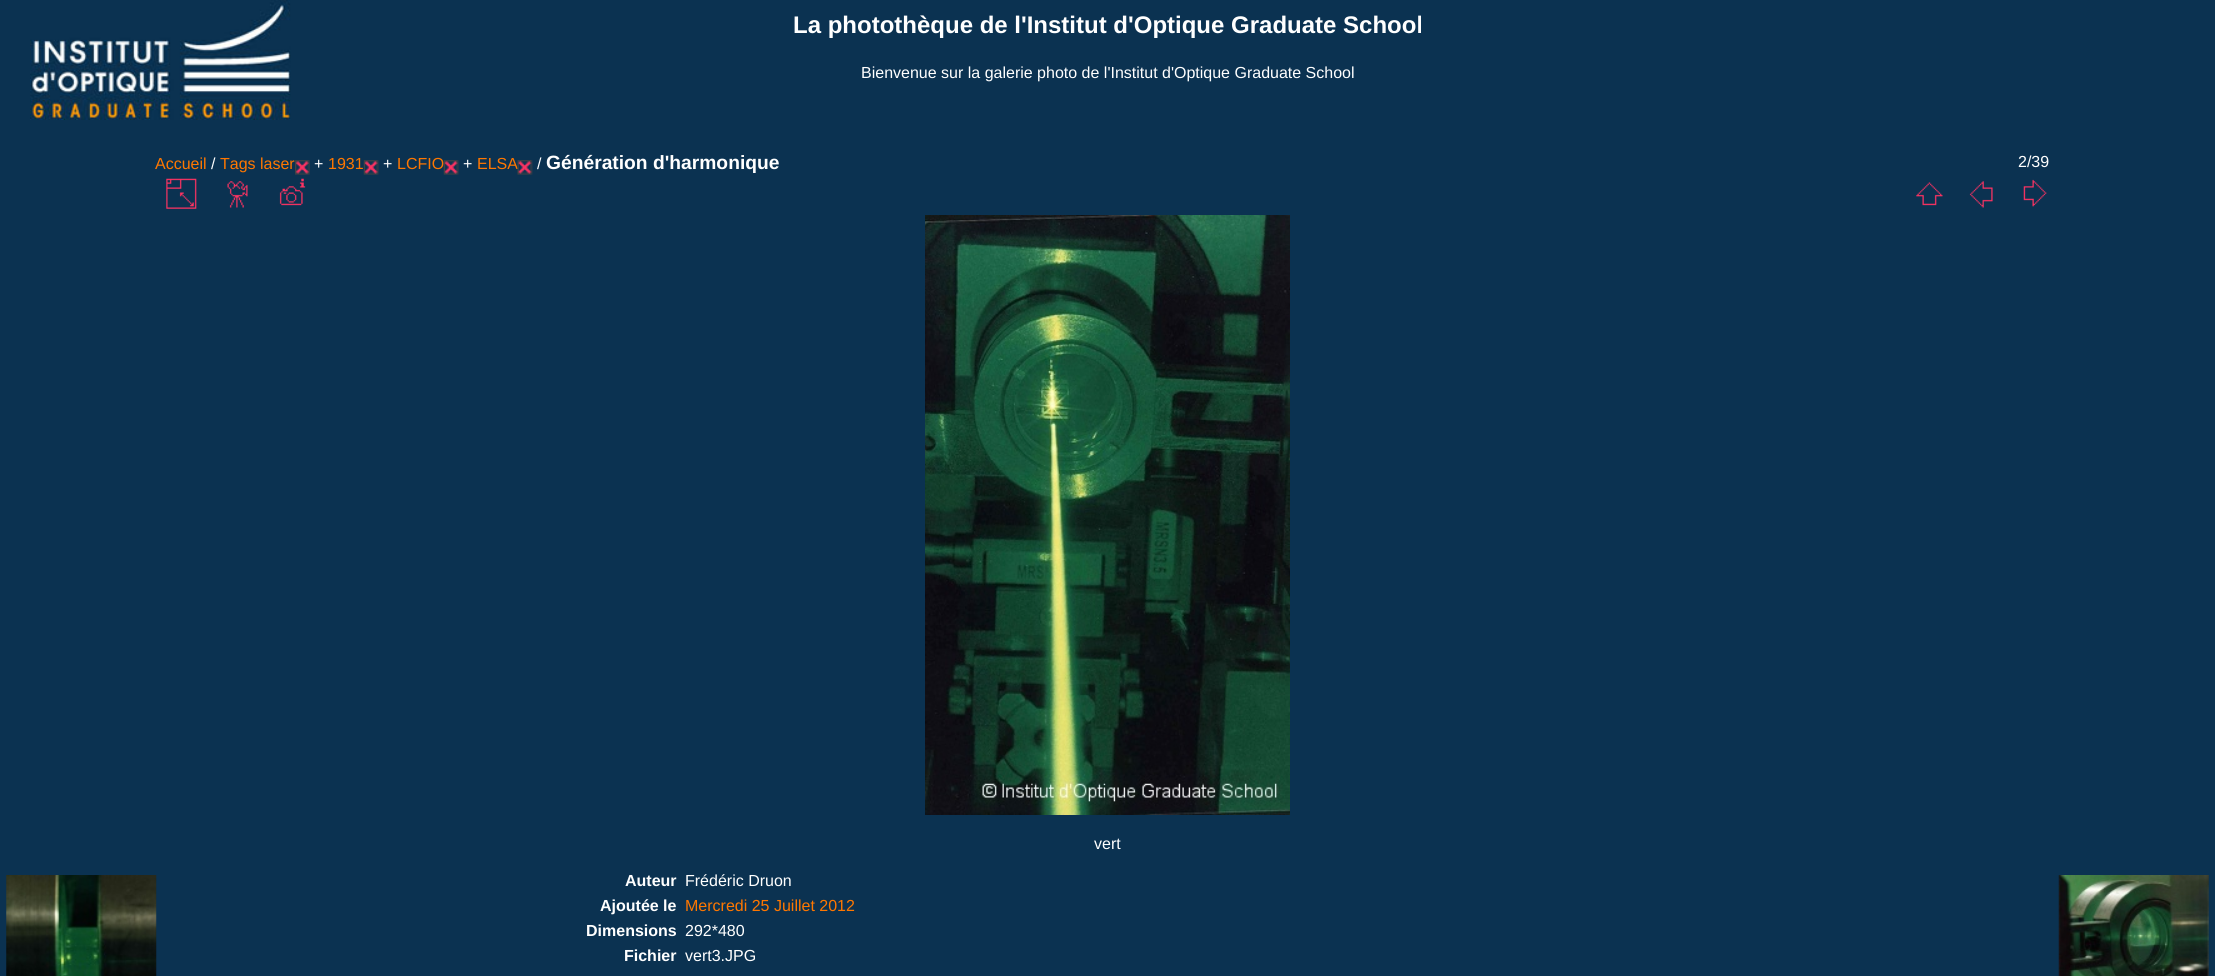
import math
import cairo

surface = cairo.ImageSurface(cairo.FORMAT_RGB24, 2215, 976)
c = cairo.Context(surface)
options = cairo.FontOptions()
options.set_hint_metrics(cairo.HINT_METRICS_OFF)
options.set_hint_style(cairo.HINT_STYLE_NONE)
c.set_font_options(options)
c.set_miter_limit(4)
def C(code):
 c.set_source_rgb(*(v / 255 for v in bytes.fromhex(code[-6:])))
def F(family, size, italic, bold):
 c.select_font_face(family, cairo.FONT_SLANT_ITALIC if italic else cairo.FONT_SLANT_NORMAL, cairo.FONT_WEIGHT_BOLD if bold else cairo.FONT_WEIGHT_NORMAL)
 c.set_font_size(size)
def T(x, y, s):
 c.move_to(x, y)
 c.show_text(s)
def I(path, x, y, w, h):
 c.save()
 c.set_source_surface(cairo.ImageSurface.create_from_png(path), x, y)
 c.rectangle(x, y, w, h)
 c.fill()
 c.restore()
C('0b3251')
c.paint()
I('1.png',30,0,261,120)
F('Liberation Sans',24,0,1)
C('ffffff')
T(793,33,'La photothèque de l\'Institut d\'Optique Graduate School')
F('Liberation Sans',16,0,0)
T(861,78,'Bienvenue sur la galerie photo de l\'Institut d\'Optique Graduate School')
C('ff7700')
T(155,169,'Accueil')
C('ffffff')
T(211,169,'/')
C('ff7700')
T(220,169,'Tags laser')
I('2.png',295,160,15,15)
C('ffffff')
T(314,169,'+')
C('ff7700')
T(328,169,'1931')
I('3.png',363,160,16,15)
C('ffffff')
T(383,169,'+')
C('ff7700')
T(397,169,'LCFIO')
I('4.png',443,160,16,15)
C('ffffff')
T(463,169,'+')
C('ff7700')
T(477,169,'ELSA')
I('5.png',517,160,16,15)
C('ffffff')
T(537,169,'/')
F('Liberation Sans',19.25,0,1)
T(546,169,'Génération d\'harmonique')
F('Liberation Sans',16,0,0)
T(2018,167,'2/39')
I('6.png',166,178,31,31)
I('7.png',227,181,21,27)
I('8.png',279,178,27,28)
I('9.png',1916,182,27,24)
I('10.png',1969,181,24,27)
I('11.png',2023,179,24,28)
I('12.png',925,215,365,600)
T(1094,849,'vert')
F('Liberation Sans',16,0,1)
T(625,886,'Auteur')
F('Liberation Sans',16,0,0)
T(685,886,'Frédéric Druon')
F('Liberation Sans',16,0,1)
T(600,911,'Ajoutée le')
F('Liberation Sans',16,0,0)
C('ff7700')
T(685,911,'Mercredi 25 Juillet 2012')
F('Liberation Sans',16,0,1)
C('ffffff')
T(586,936,'Dimensions')
F('Liberation Sans',16,0,0)
T(685,936,'292*480')
F('Liberation Sans',16,0,1)
T(624,961,'Fichier')
F('Liberation Sans',16,0,0)
T(685,961,'vert3.JPG')
I('13.png',6,875,151,101)
I('14.png',2058,875,151,101)
surface.write_to_png('o.png')
